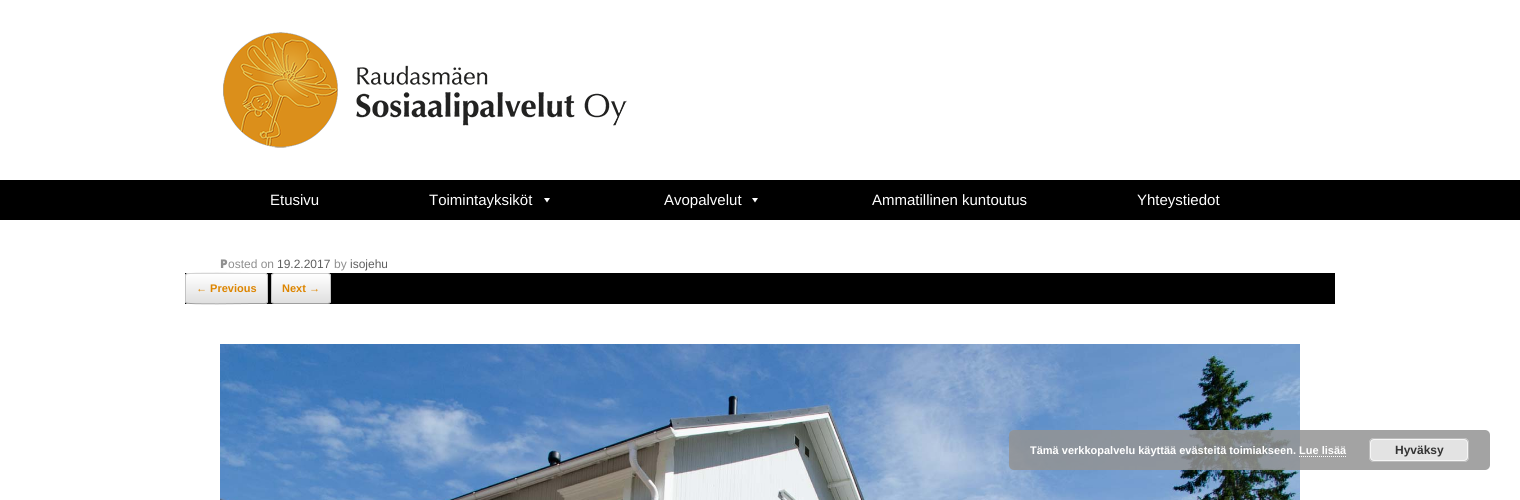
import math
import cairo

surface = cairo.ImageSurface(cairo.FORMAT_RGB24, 1520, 500)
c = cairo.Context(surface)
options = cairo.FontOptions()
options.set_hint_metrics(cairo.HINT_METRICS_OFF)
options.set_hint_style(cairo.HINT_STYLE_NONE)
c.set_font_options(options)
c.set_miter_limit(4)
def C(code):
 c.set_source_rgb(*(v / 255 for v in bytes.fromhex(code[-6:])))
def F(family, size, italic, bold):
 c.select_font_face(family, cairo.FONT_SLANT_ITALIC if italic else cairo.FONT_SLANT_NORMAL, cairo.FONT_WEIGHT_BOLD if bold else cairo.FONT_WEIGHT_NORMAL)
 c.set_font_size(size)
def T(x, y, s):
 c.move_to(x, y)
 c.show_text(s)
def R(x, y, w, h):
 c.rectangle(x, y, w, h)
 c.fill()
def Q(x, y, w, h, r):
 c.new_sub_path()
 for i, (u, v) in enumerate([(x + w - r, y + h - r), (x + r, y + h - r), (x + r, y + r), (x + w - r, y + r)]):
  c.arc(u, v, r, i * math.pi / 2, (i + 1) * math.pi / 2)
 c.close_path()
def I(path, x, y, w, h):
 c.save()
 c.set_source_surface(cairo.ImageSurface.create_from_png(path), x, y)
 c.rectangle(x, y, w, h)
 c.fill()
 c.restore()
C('ffffff')
c.paint()
I('1.png',223,32,404,116)
C('000000')
R(0,180,1520,40)
F('Liberation Sans',15,0,0)
C('ffffff')
T(270,205,'Etusivu')
T(429,205,'Toimintayksiköt')
c.new_path()
c.move_to(550,198)
c.line_to(547,202.5)
c.line_to(544,198)
c.close_path()
c.fill()
T(664,205,'Avopalvelut')
c.new_path()
c.move_to(758,198)
c.line_to(755,202.5)
c.line_to(752,198)
c.close_path()
c.fill()
T(872,205,'Ammatillinen kuntoutus')
T(1137,205,'Yhteystiedot')
F('Noto Sans Black',12,0,0)
C('8f8f8f')
T(220,268,'P')
F('Liberation Sans',12,0,0)
T(228,268,'osted on')
C('5e5e5e')
T(277,268,'19.2.2017')
C('8f8f8f')
T(334,268,'by')
C('5e5e5e')
T(350,268,'isojehu')
C('000000')
R(185,273,1150,31)
c.save()
Q(185,273,83,31,3)
c.clip()
gradient = cairo.LinearGradient(186,274,186,245)
gradient.add_color_stop_rgba(0,0.875,0.875,0.875,1)
gradient.add_color_stop_rgba(1,1,1,1,1)
c.set_source(gradient)
R(185,273,83,1)
gradient = cairo.LinearGradient(186,303,186,274)
gradient.add_color_stop_rgba(0,0.875,0.875,0.875,1)
gradient.add_color_stop_rgba(1,1,1,1,1)
c.set_source(gradient)
R(185,274,83,29)
gradient = cairo.LinearGradient(186,332,186,303)
gradient.add_color_stop_rgba(0,0.875,0.875,0.875,1)
gradient.add_color_stop_rgba(1,1,1,1,1)
c.set_source(gradient)
R(185,303,83,1)
c.restore()
c.new_path()
c.move_to(186,274)
c.line_to(186.5,274)
c.curve_to(188.5,272.5,245,273.5,252,273.5)
c.line_to(265,273.5)
c.line_to(267,274)
C('d2d2d2')
c.set_line_width(1)
c.stroke()
c.new_path()
c.move_to(267,274)
c.curve_to(267,274.5,267.5,275.5,267.5,276)
c.line_to(267.5,301)
c.curve_to(267.5,301.5,267,302.5,267,303)
C('c3c3c3')
c.stroke()
c.new_path()
c.move_to(267,303)
c.line_to(265,303.5)
c.line_to(252,303.5)
c.curve_to(245,303.5,188.5,304.5,186.5,303)
c.line_to(186,303)
C('9f9f9f')
c.stroke()
c.new_path()
c.move_to(186,303)
c.curve_to(186,302.5,185.5,301.5,185.5,301)
c.line_to(185.5,276)
c.curve_to(185.5,275.5,186,274.5,186,274)
C('c3c3c3')
c.stroke()
F('Liberation Sans',11,0,1)
C('dd8500')
T(196,292,'← Previous')
c.save()
Q(271,273,60,31,3)
c.clip()
gradient = cairo.LinearGradient(272,303,272,274)
gradient.add_color_stop_rgba(0,0.875,0.875,0.875,1)
gradient.add_color_stop_rgba(1,1,1,1,1)
c.set_source(gradient)
R(271,274,60,29)
c.restore()
c.new_path()
c.move_to(272,274)
c.line_to(274,273.5)
c.line_to(328,273.5)
c.line_to(330,274)
C('d2d2d2')
c.stroke()
c.new_path()
c.move_to(330,274)
c.curve_to(330,274.5,330.5,275.5,330.5,276)
c.line_to(330.5,301)
c.curve_to(330.5,301.5,330,302.5,330,303)
C('c3c3c3')
c.stroke()
c.new_path()
c.move_to(330,303)
c.line_to(328,303.5)
c.line_to(274,303.5)
c.line_to(272,303)
C('9f9f9f')
c.stroke()
c.new_path()
c.move_to(272,303)
c.curve_to(272,302.5,271.5,301.5,271.5,301)
c.line_to(271.5,276)
c.curve_to(271.5,275.5,272,274.5,272,274)
C('c3c3c3')
c.stroke()
C('dd8500')
T(282,292,'Next →')
I('2.png',220,344,1080,156)
c.set_source_rgba(0.576,0.576,0.576,0.85)
Q(1009,430,481,40,5)
c.fill()
C('ffffff')
T(1030,454,'Tämä verkkopalvelu käyttää evästeitä toimiakseen. Lue lisää')
C('e3e3e3')
Q(1369,438,100,24,5)
c.fill()
Q(1370.5,439.5,97,21,3.5)
C('f6f6f6')
c.stroke()
Q(1369.5,438.5,99,23,4.5)
C('bbbbbb')
c.stroke()
F('Liberation Sans',12,0,1)
C('333333')
T(1395,454,'Hyväksy')
c.new_path()
c.move_to(1299,456.5)
c.line_to(1346,456.5)
C('ffffff')
c.set_dash([1,1])
c.stroke()
surface.write_to_png('o.png')
